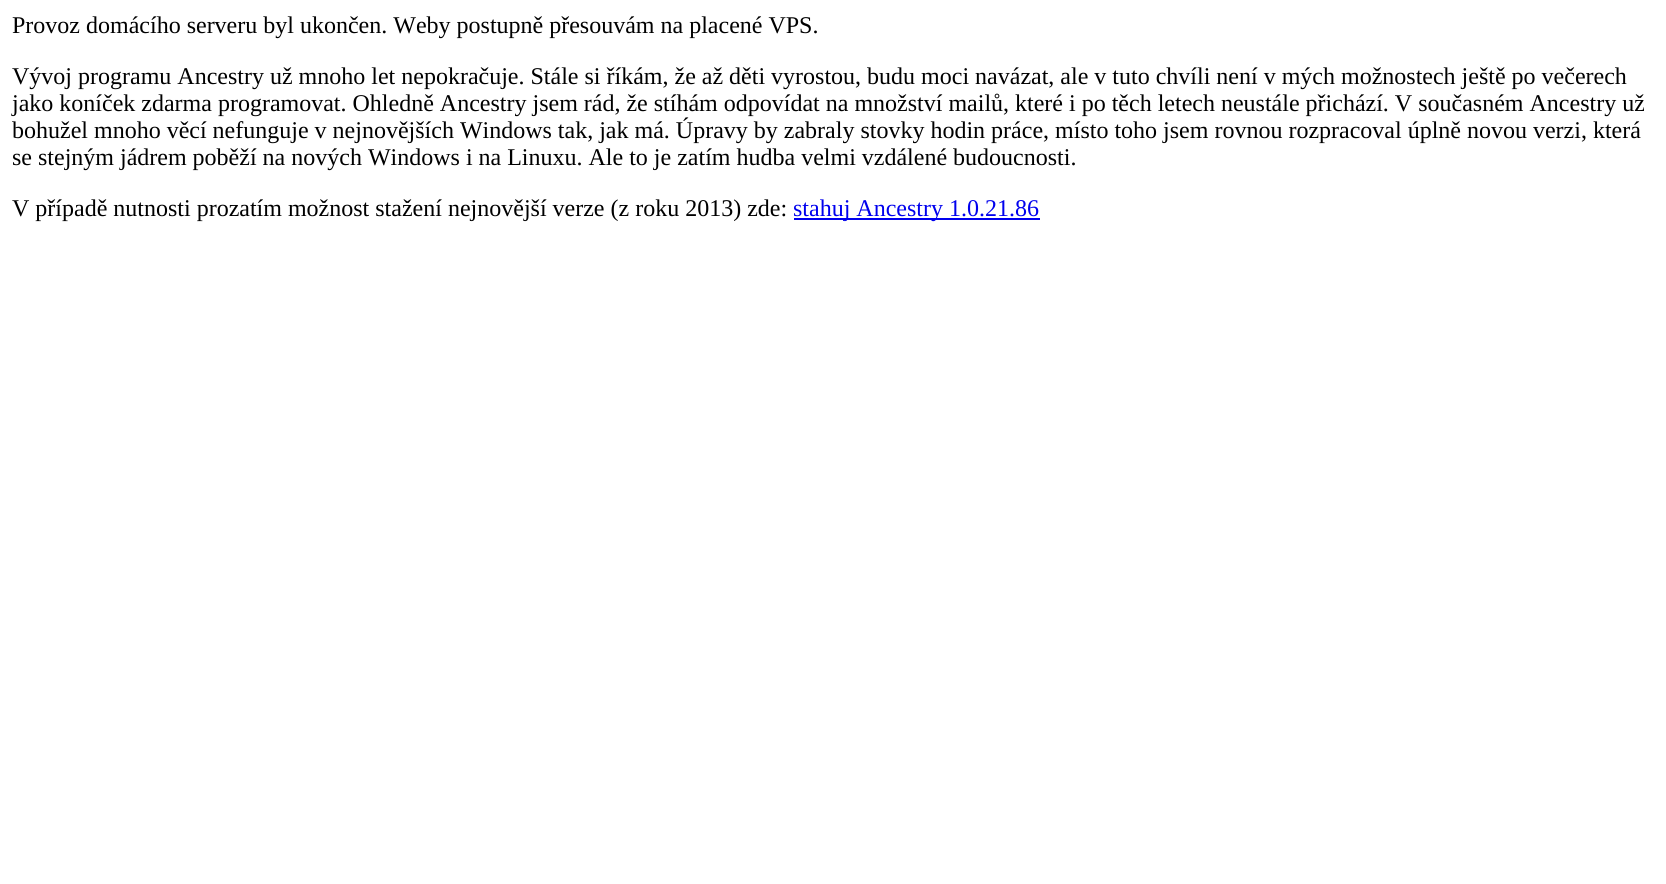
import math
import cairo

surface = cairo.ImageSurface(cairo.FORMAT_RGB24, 1666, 884)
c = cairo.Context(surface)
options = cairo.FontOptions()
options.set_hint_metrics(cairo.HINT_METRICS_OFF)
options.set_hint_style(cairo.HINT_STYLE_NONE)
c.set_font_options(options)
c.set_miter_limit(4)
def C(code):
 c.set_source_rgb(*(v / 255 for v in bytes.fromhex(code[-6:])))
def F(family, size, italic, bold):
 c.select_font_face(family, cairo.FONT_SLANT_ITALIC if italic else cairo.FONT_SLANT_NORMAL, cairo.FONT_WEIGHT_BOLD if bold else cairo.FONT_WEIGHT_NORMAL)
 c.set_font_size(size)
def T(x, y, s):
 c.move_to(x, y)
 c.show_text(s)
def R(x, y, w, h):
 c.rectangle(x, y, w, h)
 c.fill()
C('ffffff')
c.paint()
F('Liberation Serif',24,0,0)
C('000000')
T(12,33,'Provoz domácího serveru byl ukončen. Weby postupně přesouvám na placené VPS.')
T(12,84,'Vývoj programu Ancestry už mnoho let nepokračuje. Stále si říkám, že až děti vyrostou, budu moci navázat, ale v tuto chvíli není v mých možnostech ještě po večerech')
T(12,111,'jako koníček zdarma programovat. Ohledně Ancestry jsem rád, že stíhám odpovídat na množství mailů, které i po těch letech neustále přichází. V současném Ancestry už')
T(12,138,'bohužel mnoho věcí nefunguje v nejnovějších Windows tak, jak má. Úpravy by zabraly stovky hodin práce, místo toho jsem rovnou rozpracoval úplně novou verzi, která')
T(12,165,'se stejným jádrem poběží na nových Windows i na Linuxu. Ale to je zatím hudba velmi vzdálené budoucnosti.')
T(12,216,'V případě nutnosti prozatím možnost stažení nejnovější verze (z roku 2013) zde:')
C('0000ee')
R(794,218,246,2)
T(793,216,'stahuj Ancestry 1.0.21.86')
surface.write_to_png('o.png')
